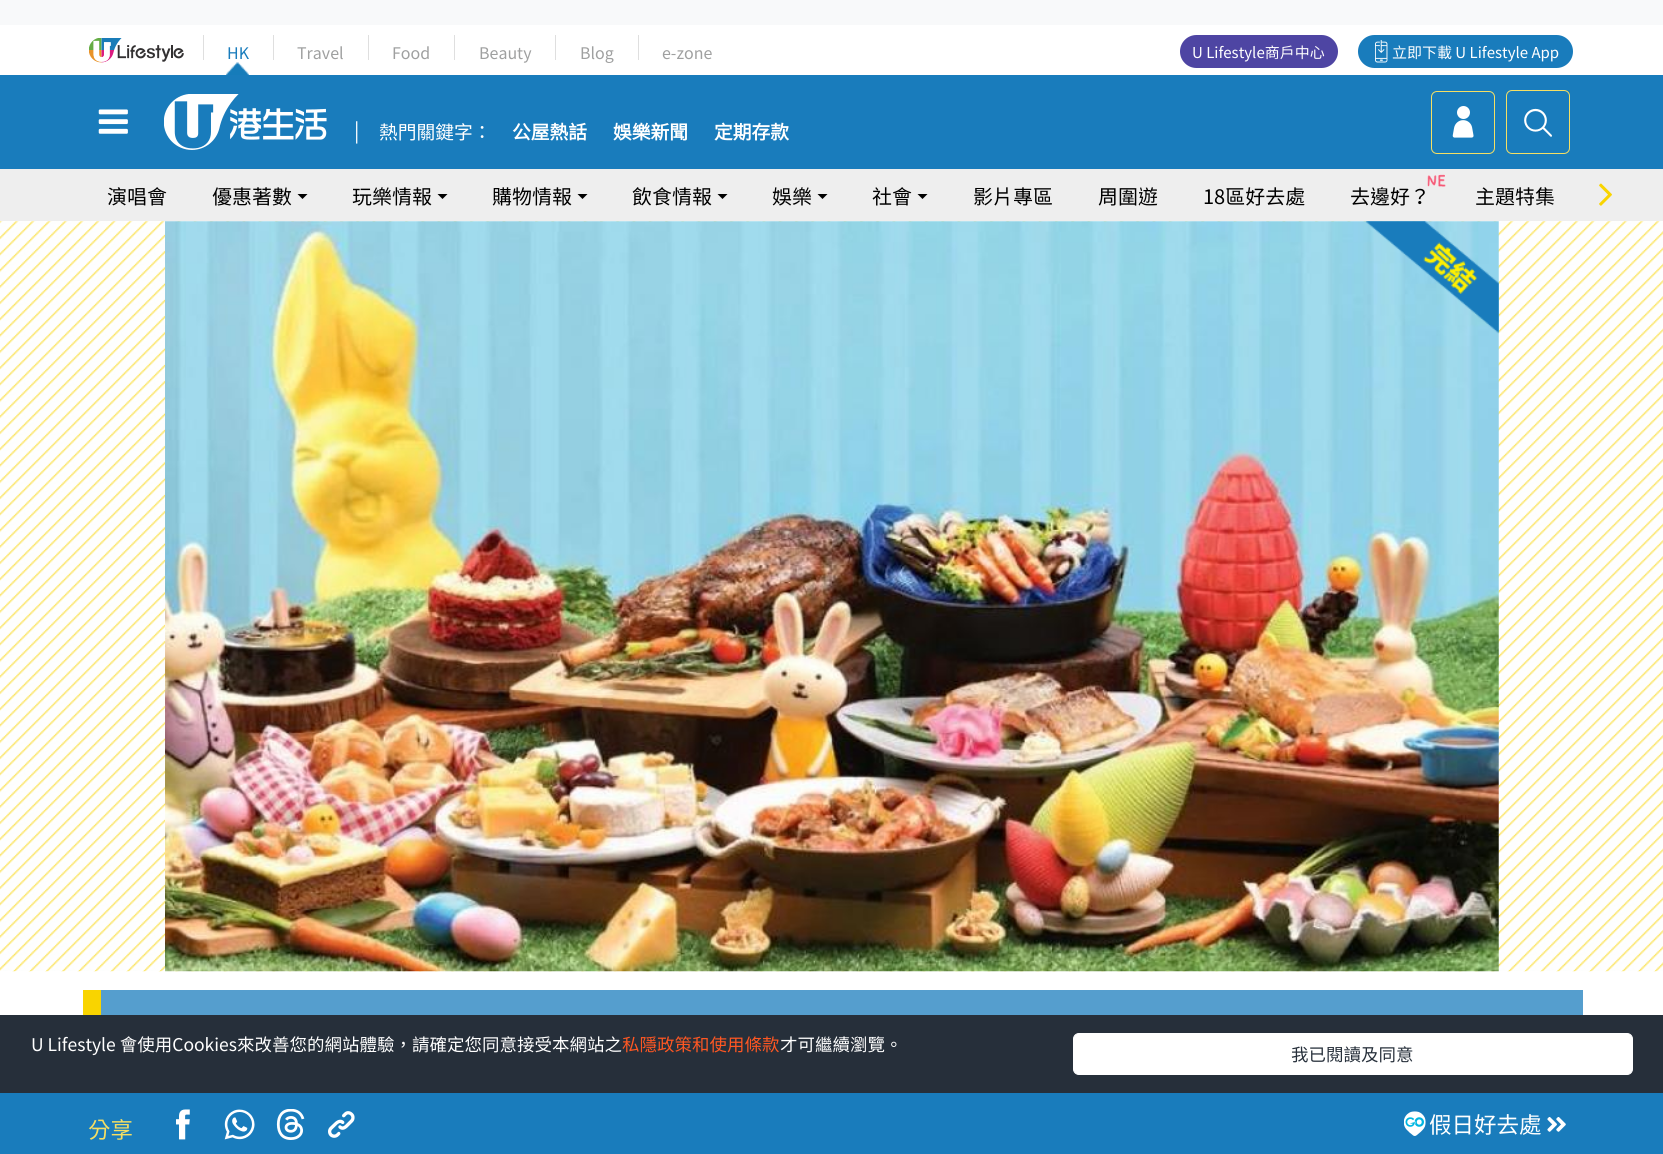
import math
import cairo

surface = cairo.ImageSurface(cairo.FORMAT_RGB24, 1663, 1154)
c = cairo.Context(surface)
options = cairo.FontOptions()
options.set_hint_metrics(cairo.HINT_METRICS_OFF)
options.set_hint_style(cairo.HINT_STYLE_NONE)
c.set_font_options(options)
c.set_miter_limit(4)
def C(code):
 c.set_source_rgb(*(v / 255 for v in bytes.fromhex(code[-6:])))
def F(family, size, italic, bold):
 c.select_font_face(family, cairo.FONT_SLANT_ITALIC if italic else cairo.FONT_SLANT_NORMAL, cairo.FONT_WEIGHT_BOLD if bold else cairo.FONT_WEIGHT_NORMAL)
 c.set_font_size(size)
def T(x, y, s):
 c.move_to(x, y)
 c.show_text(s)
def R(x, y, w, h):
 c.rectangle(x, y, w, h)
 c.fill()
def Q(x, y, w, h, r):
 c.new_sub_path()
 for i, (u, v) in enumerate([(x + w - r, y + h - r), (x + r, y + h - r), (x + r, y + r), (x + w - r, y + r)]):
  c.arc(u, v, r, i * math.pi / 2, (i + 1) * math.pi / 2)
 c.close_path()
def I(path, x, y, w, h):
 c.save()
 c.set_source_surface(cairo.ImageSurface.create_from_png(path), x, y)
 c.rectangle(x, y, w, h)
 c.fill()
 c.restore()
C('ffffff')
c.paint()
C('f8f9fa')
R(0,0,1663,25)
I('1.png',89,38,95,25)
C('dfdfdf')
R(203,35,1,25)
I('2.png',226,62,23,13)
F('Noto Sans TC',16,0,0)
C('197cbc')
T(227,59,'HK')
C('dfdfdf')
R(273,35,1,25)
C('9fa0a0')
T(297,59,'Travel')
C('dfdfdf')
R(368,35,1,25)
C('9fa0a0')
T(392,59,'Food')
C('dfdfdf')
R(454,35,1,25)
C('9fa0a0')
T(479,59,'Beauty')
C('dfdfdf')
R(555,35,1,25)
C('9fa0a0')
T(580,59,'Blog')
C('dfdfdf')
R(638,35,1,25)
C('9fa0a0')
T(662,59,'e-zone')
C('4e45a3')
Q(1180,35,158,33,16.5)
c.fill()
F('Noto Sans TC',15,0,0)
C('ffffff')
T(1192,58,'U Lifestyle商戶中心')
C('197cbc')
Q(1358,35,215,33,16.5)
c.fill()
I('3.png',1375,40,13,23)
C('ffffff')
T(1392,58,'立即下載 U Lifestyle App')
C('197cbc')
R(0,75,1663,94)
I('4.png',98,109,30,25)
I('5.png',164,94,163,56)
F('Noto Sans TC',20,0,0)
C('ffffff')
T(354,138,'|')
F('Noto Sans CJK HK',18.75,0,0)
T(379,139,'熱門關鍵字：')
F('Noto Sans CJK HK',18.75,0,1)
T(512,139,'公屋熱話')
T(613,139,'娛樂新聞')
T(714,139,'定期存款')
Q(1431.5,91.5,63,62,5.5)
C('f5df63')
c.set_line_width(1)
c.stroke()
I('6.png',1452,106,22,32)
Q(1506.5,90.5,63,63,5.5)
c.stroke()
I('7.png',1524,108,28,29)
C('eeeeee')
R(0,169,1663,52)
F('Noto Sans TC',20,0,0)
C('000000')
T(107,204,'演唱會')
T(212,204,'優惠著數')
c.new_path()
c.move_to(297.5,194)
c.line_to(307.5,194)
c.line_to(302.5,199)
c.close_path()
c.fill()
T(352,204,'玩樂情報')
c.new_path()
c.move_to(437.5,194)
c.line_to(447.5,194)
c.line_to(442.5,199)
c.close_path()
c.fill()
T(492,204,'購物情報')
c.new_path()
c.move_to(577.5,194)
c.line_to(587.5,194)
c.line_to(582.5,199)
c.close_path()
c.fill()
T(632,204,'飲食情報')
c.new_path()
c.move_to(717.5,194)
c.line_to(727.5,194)
c.line_to(722.5,199)
c.close_path()
c.fill()
T(772,204,'娛樂')
c.new_path()
c.move_to(817.5,194)
c.line_to(827.5,194)
c.line_to(822.5,199)
c.close_path()
c.fill()
T(872,204,'社會')
c.new_path()
c.move_to(917.5,194)
c.line_to(927.5,194)
c.line_to(922.5,199)
c.close_path()
c.fill()
T(973,204,'影片專區')
T(1098,204,'周圍遊')
T(1203,204,'18區好去處')
I('8.png',1427,174,19,13)
T(1350,204,'去邊好？')
T(1475,204,'主題特集')
I('9.png',1599,183,13,23)
I('10.png',0,221,1663,751)
I('11.png',165,221,1334,751)
I('12.png',1365,221,134,113)
C('559ece')
R(101,990,1482,25)
C('f9d400')
R(83,990,18,25)
C('197cbc')
R(0,1093,1663,61)
F('Noto Sans TC',22.5,0,0)
C('f5df63')
T(88,1138,'分享')
I('13.png',176,1109,14,31)
I('14.png',224,1109,31,31)
I('15.png',276,1109,29,31)
I('16.png',328,1111,27,27)
I('17.png',1404,1111,22,25)
F('Noto Sans CJK HK',22.5,0,0)
C('ffffff')
T(1429,1133,'假日好去處')
I('18.png',1547,1117,19,15)
C('262f3a')
R(0,1015,1663,78)
F('Noto Sans TC',17.5,0,0)
C('ffffff')
T(31,1051,'U Lifestyle 會使用Cookies來改善您的網站體驗，請確定您同意接受本網站之')
C('ff5722')
T(622,1051,'私隱政策和使用條款')
C('ffffff')
T(780,1051,'才可繼續瀏覽。')
Q(1073.5,1033.5,559,41,5.5)
c.fill_preserve()
c.stroke()
C('262f3a')
T(1291,1061,'我已閱讀及同意')
surface.write_to_png('o.png')
